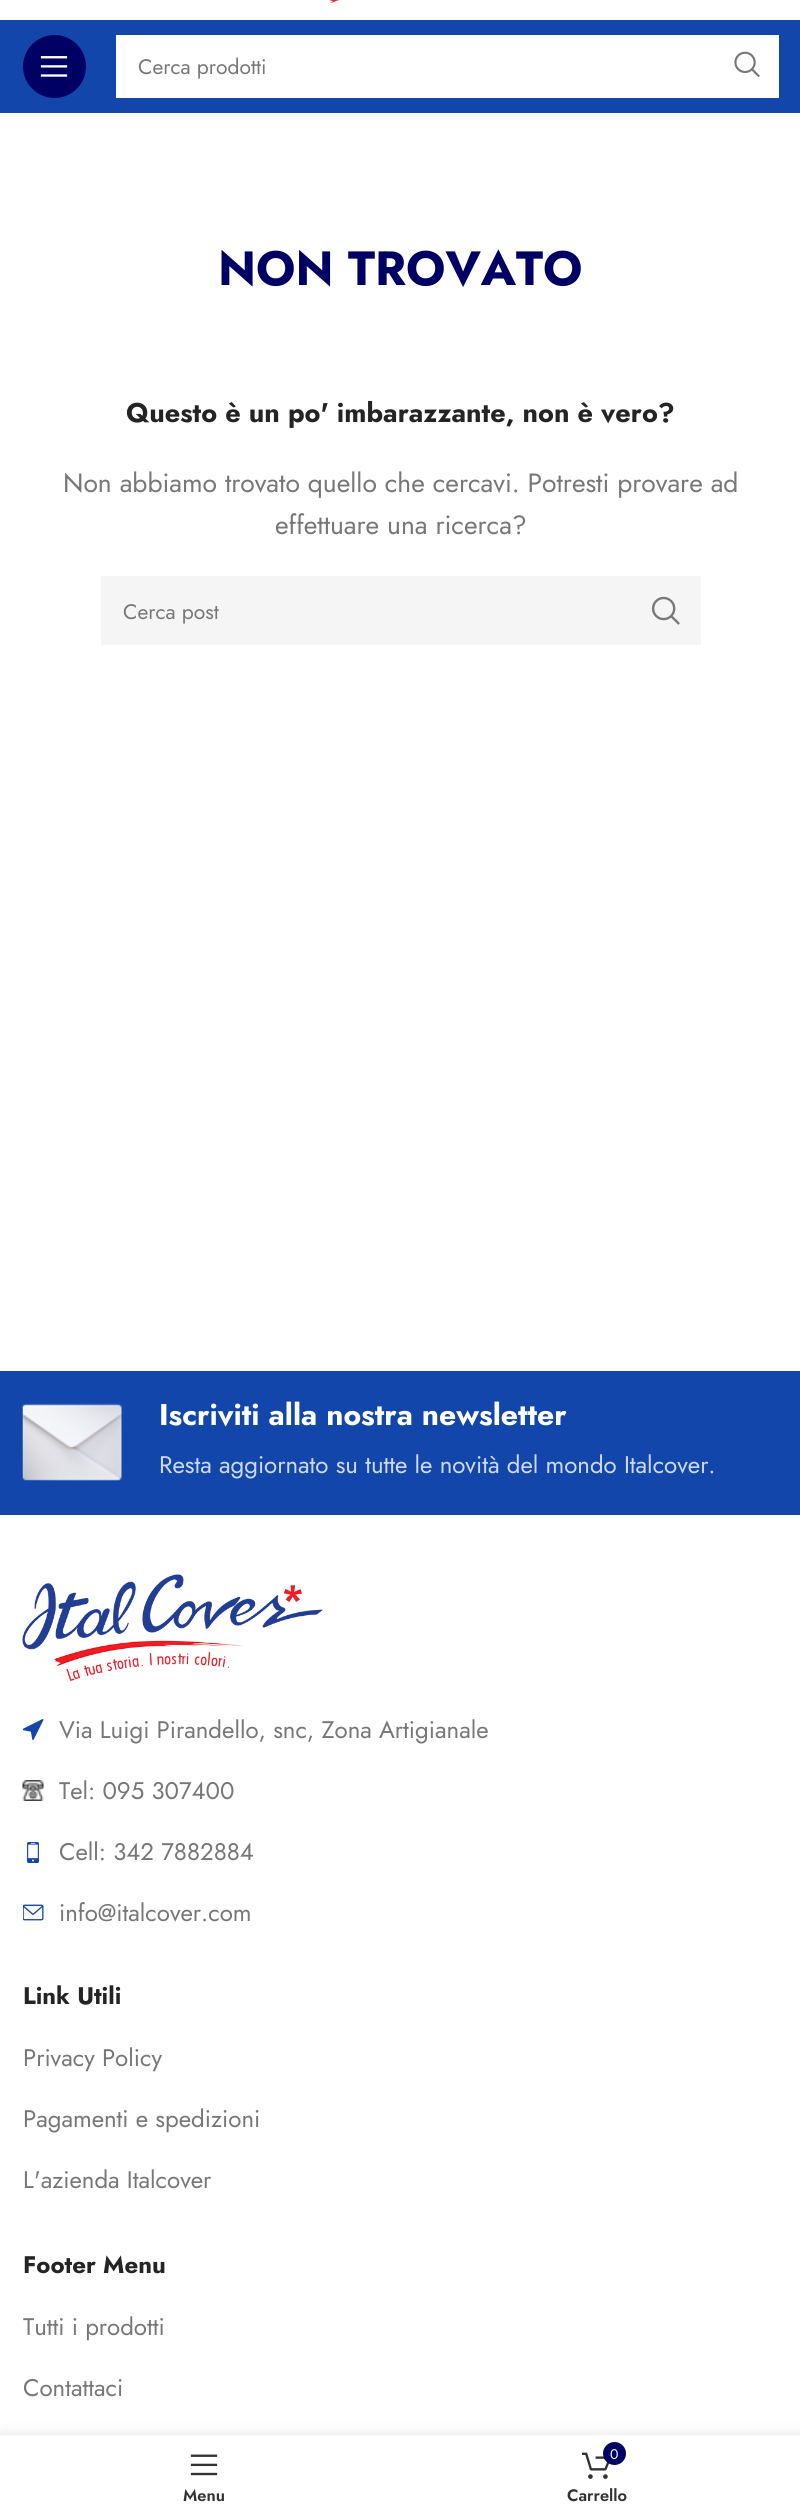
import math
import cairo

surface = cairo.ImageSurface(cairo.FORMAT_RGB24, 800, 2517)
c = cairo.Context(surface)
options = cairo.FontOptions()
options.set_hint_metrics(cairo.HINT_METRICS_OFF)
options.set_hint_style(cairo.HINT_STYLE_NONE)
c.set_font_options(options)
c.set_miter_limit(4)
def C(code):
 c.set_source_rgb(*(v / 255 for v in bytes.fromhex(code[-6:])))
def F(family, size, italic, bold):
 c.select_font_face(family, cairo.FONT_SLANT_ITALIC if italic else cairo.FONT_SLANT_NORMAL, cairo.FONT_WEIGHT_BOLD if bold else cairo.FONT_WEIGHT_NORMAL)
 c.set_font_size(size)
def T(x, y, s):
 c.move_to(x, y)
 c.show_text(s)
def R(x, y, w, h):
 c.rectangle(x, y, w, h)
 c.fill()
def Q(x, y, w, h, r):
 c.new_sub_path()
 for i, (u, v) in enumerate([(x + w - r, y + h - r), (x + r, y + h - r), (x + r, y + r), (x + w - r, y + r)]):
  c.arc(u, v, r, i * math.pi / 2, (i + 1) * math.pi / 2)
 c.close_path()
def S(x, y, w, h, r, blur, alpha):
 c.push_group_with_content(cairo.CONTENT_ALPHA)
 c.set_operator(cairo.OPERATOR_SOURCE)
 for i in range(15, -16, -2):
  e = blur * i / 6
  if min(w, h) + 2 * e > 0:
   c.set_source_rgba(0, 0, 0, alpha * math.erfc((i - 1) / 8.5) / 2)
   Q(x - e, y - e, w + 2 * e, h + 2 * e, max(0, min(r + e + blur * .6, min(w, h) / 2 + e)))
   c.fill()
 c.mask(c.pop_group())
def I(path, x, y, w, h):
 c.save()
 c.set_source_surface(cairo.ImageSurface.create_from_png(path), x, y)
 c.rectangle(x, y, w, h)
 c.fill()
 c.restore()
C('ffffff')
c.paint()
I('1.png',329,0,11,3)
C('1246ab')
R(0,20,800,93)
C('000064')
c.arc(54.5,66.5,31.5,0,2 * math.pi)
c.fill()
I('2.png',40,56,28,21)
C('ffffff')
R(116,35,663,63)
F('Jost',21,0,0)
C('777777')
T(138,74,'Cerca prodotti')
I('3.png',734,51,26,27)
F('Jost',48,0,1)
C('000064')
T(218,285,'NON TROVATO')
F('Jost',27,0,1)
C('242424')
T(126,422,'Questo è un po\' imbarazzante, non è vero?')
F('Jost',26.4,0,0)
C('777777')
T(63,492,'Non abbiamo trovato quello che cercavi. Potresti provare ad')
T(275,534,'effettuare una ricerca?')
C('f5f5f5')
R(101,576,600,69)
F('Jost',21,0,0)
C('777777')
T(123,619,'Cerca post')
I('4.png',651,596,29,29)
C('1246ab')
R(0,1371,800,144)
I('5.png',22,1403,101,78)
F('Jost',30,0,1)
C('ffffff')
T(159,1425,'Iscriviti alla nostra newsletter')
F('Jost',24,0,0)
C('d0daee')
T(159,1473,'Resta aggiornato su tutte le novità del mondo Italcover.')
I('6.png',22,1574,301,107)
I('7.png',23,1719,21,21)
C('777777')
T(59,1738,'Via Luigi Pirandello, snc, Zona Artigianale')
I('8.png',22,1780,22,21)
T(59,1799,'Tel: 095 307400')
I('9.png',27,1842,12,21)
T(59,1860,'Cell: 342 7882884')
I('10.png',23,1904,21,17)
T(59,1921,'info@italcover.com')
F('Jost',24,0,1)
C('242424')
T(23,2004,'Link Utili')
F('Jost',24,0,0)
C('777777')
T(23,2066,'Privacy Policy')
T(23,2127,'Pagamenti e spedizioni')
T(23,2188,'L\'azienda Italcover')
F('Jost',24,0,1)
C('242424')
T(23,2273,'Footer Menu')
F('Jost',24,0,0)
C('777777')
T(23,2335,'Tutti i prodotti')
T(23,2396,'Contattaci')
C('000000')
S(0,2435,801,82,0,7,.12)
C('ffffff')
R(0,2435,800,82)
I('11.png',190,2454,28,22)
F('Jost SemiBold',16.5,0,0)
C('333333')
T(183,2501,'Menu')
I('12.png',582,2452,28,27)
C('000064')
c.arc(614.5,2453.5,11.5,0,2 * math.pi)
c.fill()
F('Jost',14,0,0)
C('ffffff')
T(610,2459,'0')
F('Jost SemiBold',16.5,0,0)
C('333333')
T(567,2501,'Carrello')
surface.write_to_png('o.png')
